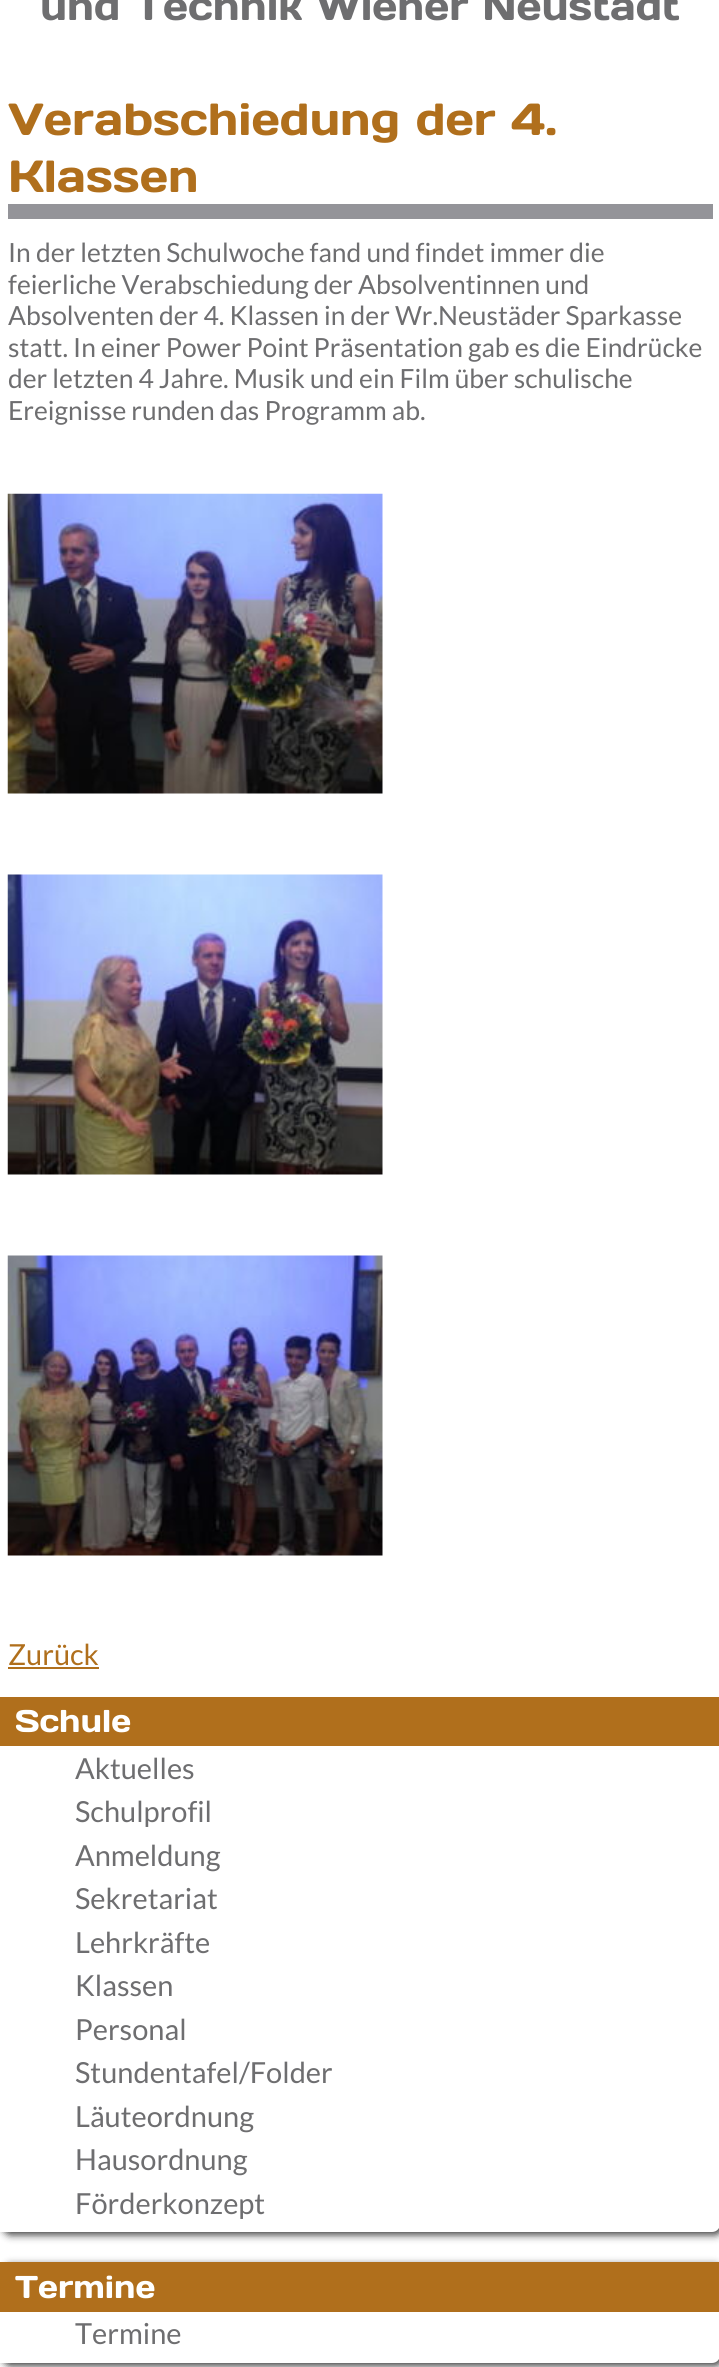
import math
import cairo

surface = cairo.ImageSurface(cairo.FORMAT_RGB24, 719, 2367)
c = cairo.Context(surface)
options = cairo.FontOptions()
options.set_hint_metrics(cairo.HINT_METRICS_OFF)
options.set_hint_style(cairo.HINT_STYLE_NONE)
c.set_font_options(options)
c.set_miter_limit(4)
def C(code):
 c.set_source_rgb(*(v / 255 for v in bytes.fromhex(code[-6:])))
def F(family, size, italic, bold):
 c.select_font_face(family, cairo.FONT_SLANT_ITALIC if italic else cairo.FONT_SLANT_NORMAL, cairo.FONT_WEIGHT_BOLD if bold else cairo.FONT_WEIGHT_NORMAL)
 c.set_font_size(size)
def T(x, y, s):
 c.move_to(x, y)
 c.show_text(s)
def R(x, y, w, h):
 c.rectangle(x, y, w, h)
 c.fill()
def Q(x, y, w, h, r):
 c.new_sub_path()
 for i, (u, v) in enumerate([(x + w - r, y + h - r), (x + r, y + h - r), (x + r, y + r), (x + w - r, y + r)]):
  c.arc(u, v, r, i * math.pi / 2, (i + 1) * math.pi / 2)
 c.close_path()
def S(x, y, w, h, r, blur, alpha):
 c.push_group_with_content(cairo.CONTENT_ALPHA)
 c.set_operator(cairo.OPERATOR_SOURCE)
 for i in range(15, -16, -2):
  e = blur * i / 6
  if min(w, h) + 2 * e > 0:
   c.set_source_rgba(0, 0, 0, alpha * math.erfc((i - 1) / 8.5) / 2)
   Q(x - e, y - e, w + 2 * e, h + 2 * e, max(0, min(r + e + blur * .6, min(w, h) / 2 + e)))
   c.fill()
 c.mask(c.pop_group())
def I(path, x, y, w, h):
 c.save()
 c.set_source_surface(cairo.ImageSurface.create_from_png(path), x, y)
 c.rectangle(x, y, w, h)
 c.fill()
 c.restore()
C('ffffff')
c.paint()
F('Days One',39.6,0,0)
C('6e6e70')
T(40,20,'und Technik Wiener Neustadt')
C('949499')
R(8,204,705,15)
F('Days One',44.9,0,0)
C('b06f1c')
T(8,135,'Verabschiedung der 4.')
T(8,192,'Klassen')
F('Lato',26.4,0,0)
C('6e6e70')
T(8,262,'In der letzten Schulwoche fand und findet immer die')
T(8,294,'feierliche Verabschiedung der Absolventinnen und')
T(8,325,'Absolventen der 4. Klassen in der Wr.Neustäder Sparkasse')
T(8,357,'statt. In einer Power Point Präsentation gab es die Eindrücke')
T(8,388,'der letzten 4 Jahre. Musik und ein Film über schulische')
T(8,420,'Ereignisse runden das Programm ab.')
I('1.png',7,493,376,301)
I('2.png',7,874,376,301)
I('3.png',7,1255,376,301)
F('Lato',29,0,0)
C('b06f1c')
T(8,1665,'Zurück')
R(8,1667,91,2)
c.save()
c.rectangle(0,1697,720,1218)
c.clip()
C('000000')
S(3,1700,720,535,8,4,.75)
c.restore()
R(0,1697,719,49)
F('Days One',31.5,0,0)
C('ffffff')
T(15,1732,'Schule')
c.new_path()
c.move_to(0,1746)
c.line_to(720,1746)
c.line_to(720,2224)
c.curve_to(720,2228.5,716.5,2232,712,2232)
c.line_to(0,2232)
c.close_path()
c.fill()
F('Lato',29,0,0)
C('6e6e70')
T(75,1779,'Aktuelles')
T(75,1822,'Schulprofil')
T(75,1866,'Anmeldung')
T(75,1909,'Sekretariat')
T(75,1953,'Lehrkräfte')
T(75,1996,'Klassen')
T(75,2040,'Personal')
T(75,2083,'Stundentafel/Folder')
T(75,2127,'Läuteordnung')
T(75,2170,'Hausordnung')
T(75,2214,'Förderkonzept')
C('000000')
S(3,2265,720,101,8,4,.75)
C('b06f1c')
R(0,2262,719,50)
F('Days One',31.5,0,0)
C('ffffff')
T(15,2298,'Termine')
c.new_path()
c.move_to(0,2312)
c.line_to(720,2312)
c.line_to(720,2355)
c.curve_to(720,2359.5,716.5,2363,712,2363)
c.line_to(0,2363)
c.close_path()
c.fill()
F('Lato',29,0,0)
C('6e6e70')
T(75,2344,'Termine')
surface.write_to_png('o.png')
